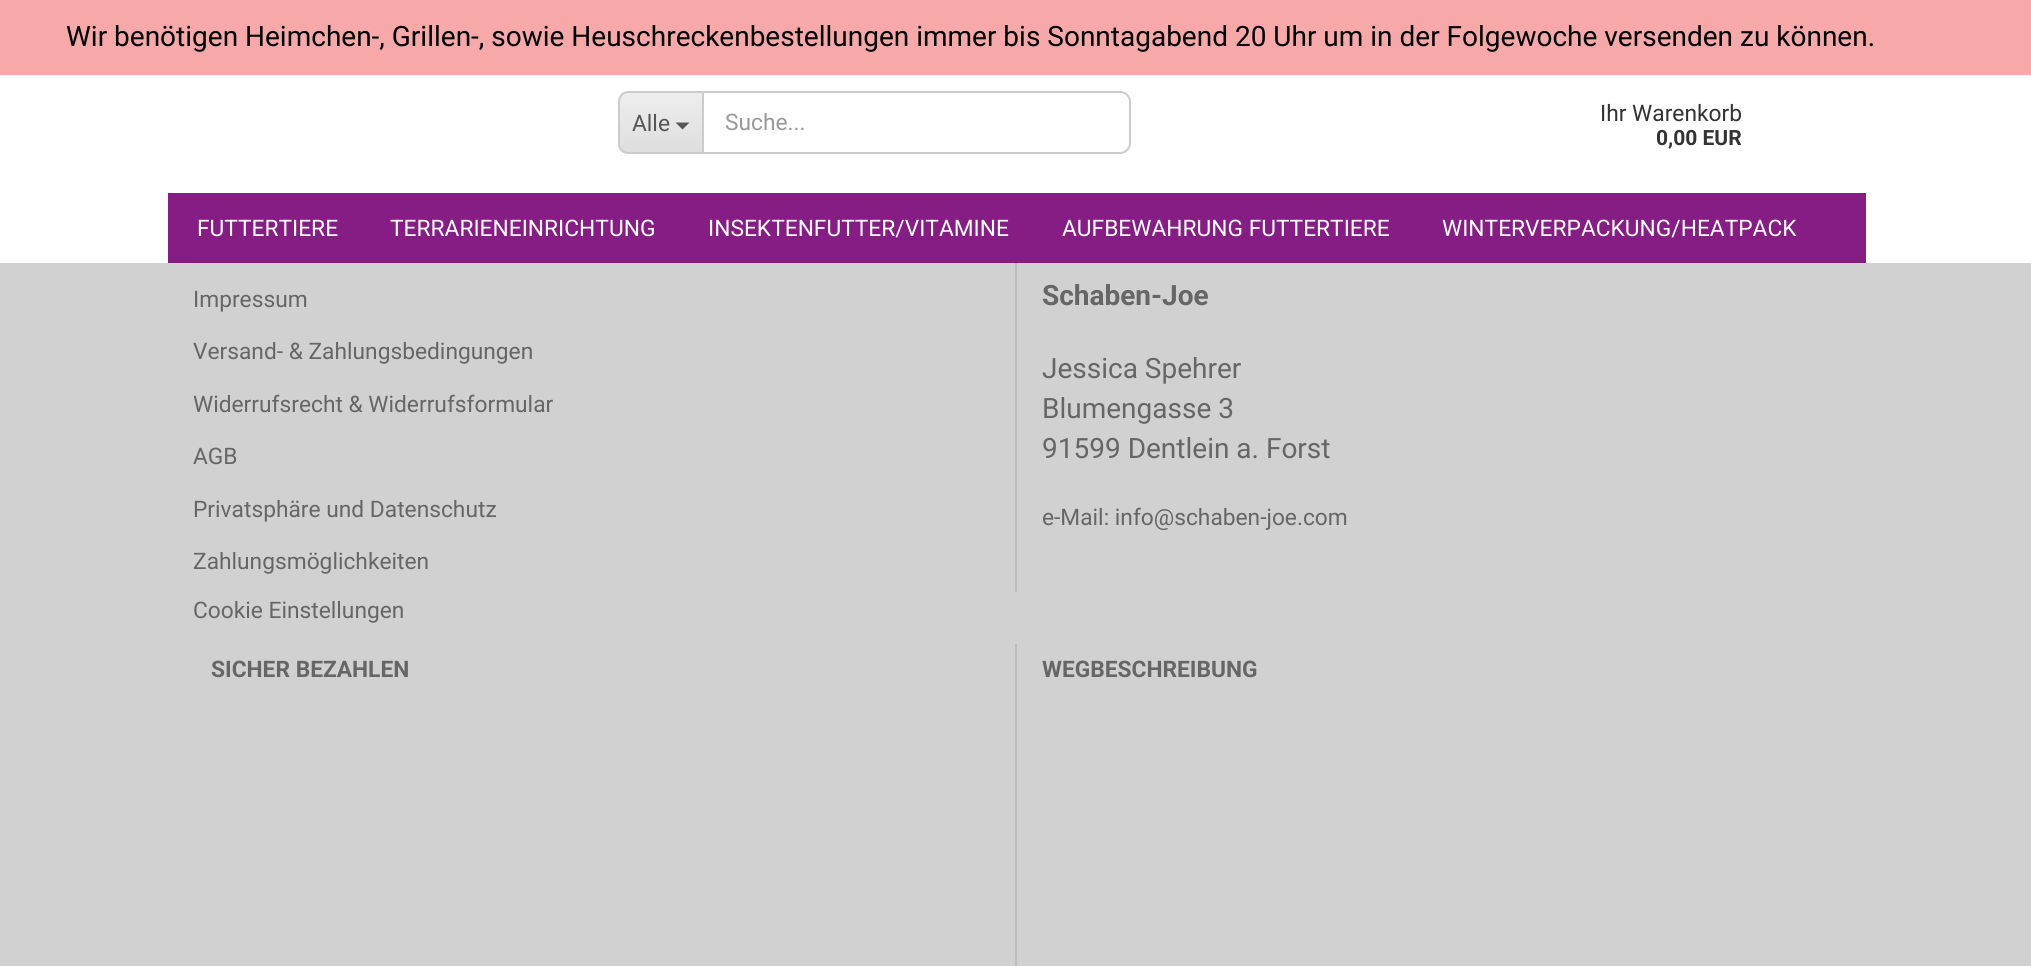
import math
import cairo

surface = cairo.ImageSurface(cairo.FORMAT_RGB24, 2031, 966)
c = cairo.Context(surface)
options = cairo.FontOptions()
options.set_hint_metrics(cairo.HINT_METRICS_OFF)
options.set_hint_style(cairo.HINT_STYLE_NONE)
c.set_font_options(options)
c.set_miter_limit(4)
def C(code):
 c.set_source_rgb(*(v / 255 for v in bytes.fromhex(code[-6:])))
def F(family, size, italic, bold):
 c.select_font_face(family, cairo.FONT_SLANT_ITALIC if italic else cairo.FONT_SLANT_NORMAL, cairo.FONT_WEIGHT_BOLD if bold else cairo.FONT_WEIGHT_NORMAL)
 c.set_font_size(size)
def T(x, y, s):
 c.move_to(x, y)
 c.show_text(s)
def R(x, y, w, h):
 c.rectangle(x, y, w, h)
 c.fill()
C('d1d1d1')
c.paint()
C('ffffff')
R(0,75,2031,188)
C('f7a8a8')
R(0,0,2031,75)
F('Roboto',28,0,0)
C('000000')
T(66,46,'Wir benötigen Heimchen-, Grillen-, sowie Heuschreckenbestellungen immer bis Sonntagabend 20 Uhr um in der Folgewoche versenden zu können.')
c.save()
c.new_path()
c.move_to(629,91)
c.line_to(702,91)
c.line_to(702,154)
c.line_to(629,154)
c.curve_to(623,154,618,149,618,143)
c.line_to(618,102)
c.curve_to(618,96,623,91,629,91)
c.close_path()
c.clip()
gradient = cairo.LinearGradient(661,93,661,152)
gradient.add_color_stop_rgba(0,0.933,0.933,0.933,1)
gradient.add_color_stop_rgba(1,0.871,0.871,0.871,1)
c.set_source(gradient)
R(618,93,84,59)
c.restore()
C('cccccc')
c.set_fill_rule(cairo.FILL_RULE_EVEN_ODD)
c.new_path()
c.move_to(628,91)
c.line_to(702,91)
c.line_to(702,154)
c.line_to(628,154)
c.curve_to(622,154,618,149,618,144)
c.line_to(618,102)
c.curve_to(618,96,622,91,628,91)
c.close_path()
c.move_to(628,93)
c.line_to(702,93)
c.line_to(702,152)
c.line_to(628,152)
c.curve_to(623,152,620,148,620,144)
c.line_to(620,102)
c.curve_to(620,97,623,93,628,93)
c.close_path()
c.fill()
F('Roboto',22.75,0,0)
C('555555')
T(632,131,'Alle')
c.set_fill_rule(cairo.FILL_RULE_WINDING)
c.new_path()
c.move_to(675.5,122.5)
c.line_to(689.5,122.5)
c.line_to(682.5,129.5)
c.close_path()
c.fill()
c.new_path()
c.move_to(703,92)
c.line_to(1120,92)
c.curve_to(1125.5,92,1130,96.5,1130,102)
c.line_to(1130,143)
c.curve_to(1130,148.5,1125.5,153,1120,153)
c.line_to(703,153)
c.close_path()
C('cccccc')
c.stroke()
C('999999')
T(725,130,'Suche...')
C('333333')
T(1600,121,'Ihr Warenkorb')
F('Roboto',21,0,1)
T(1656,145,'0,00 EUR')
C('861d84')
R(168,193,1698,70)
F('Roboto',22.75,0,0)
C('ffffff')
T(197,236,'FUTTERTIERE')
T(390,236,'TERRARIENEINRICHTUNG')
T(708,236,'INSEKTENFUTTER/VITAMINE')
T(1062,236,'AUFBEWAHRUNG FUTTERTIERE')
T(1442,236,'WINTERVERPACKUNG/HEATPACK')
C('bbbbbb')
R(1015,263,2,329)
C('666666')
T(193,307,'Impressum')
T(193,359,'Versand- & Zahlungsbedingungen')
T(193,412,'Widerrufsrecht & Widerrufsformular')
T(193,464,'AGB')
T(193,517,'Privatsphäre und Datenschutz')
T(193,569,'Zahlungsmöglichkeiten')
T(193,618,'Cookie Einstellungen')
F('Roboto',28,0,1)
T(1042,305,'Schaben-Joe')
F('Roboto',28,0,0)
T(1042,378,'Jessica Spehrer')
T(1042,418,'Blumengasse 3')
T(1042,458,'91599 Dentlein a. Forst')
F('Roboto',22.75,0,0)
T(1042,525,'e-Mail: info@schaben-joe.com')
C('bbbbbb')
R(1015,644,2,322)
F('Roboto',22.75,0,1)
C('666666')
T(211,677,'SICHER BEZAHLEN')
T(1042,677,'WEGBESCHREIBUNG')
surface.write_to_png('o.png')
